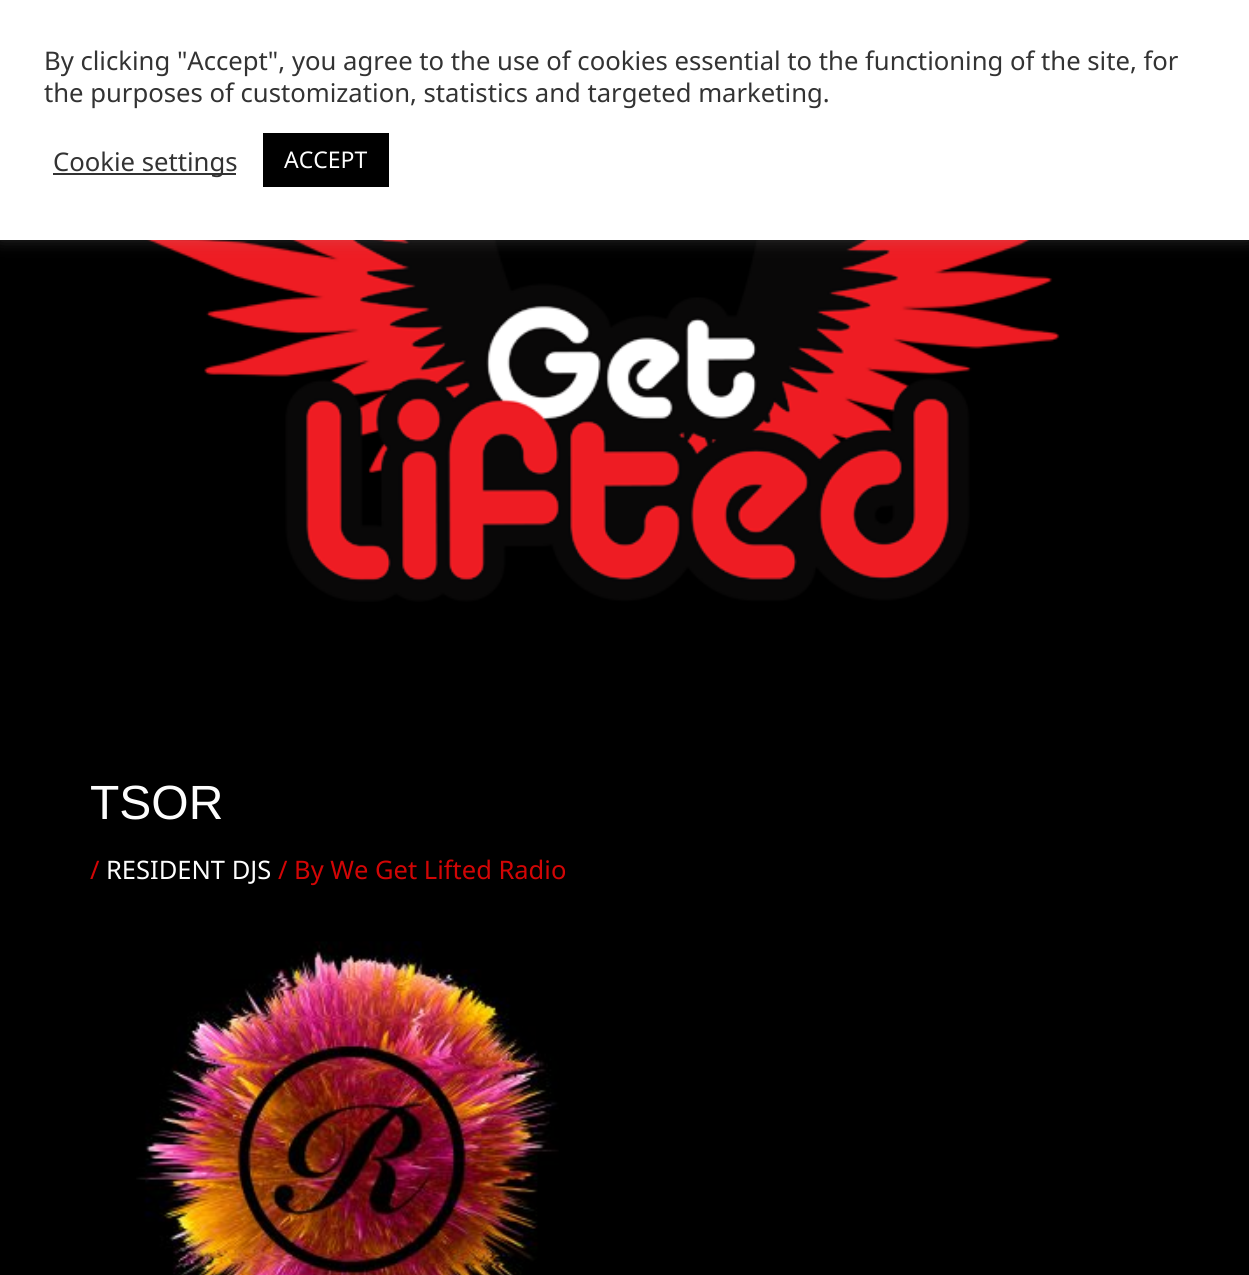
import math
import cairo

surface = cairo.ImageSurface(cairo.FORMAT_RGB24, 1249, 1275)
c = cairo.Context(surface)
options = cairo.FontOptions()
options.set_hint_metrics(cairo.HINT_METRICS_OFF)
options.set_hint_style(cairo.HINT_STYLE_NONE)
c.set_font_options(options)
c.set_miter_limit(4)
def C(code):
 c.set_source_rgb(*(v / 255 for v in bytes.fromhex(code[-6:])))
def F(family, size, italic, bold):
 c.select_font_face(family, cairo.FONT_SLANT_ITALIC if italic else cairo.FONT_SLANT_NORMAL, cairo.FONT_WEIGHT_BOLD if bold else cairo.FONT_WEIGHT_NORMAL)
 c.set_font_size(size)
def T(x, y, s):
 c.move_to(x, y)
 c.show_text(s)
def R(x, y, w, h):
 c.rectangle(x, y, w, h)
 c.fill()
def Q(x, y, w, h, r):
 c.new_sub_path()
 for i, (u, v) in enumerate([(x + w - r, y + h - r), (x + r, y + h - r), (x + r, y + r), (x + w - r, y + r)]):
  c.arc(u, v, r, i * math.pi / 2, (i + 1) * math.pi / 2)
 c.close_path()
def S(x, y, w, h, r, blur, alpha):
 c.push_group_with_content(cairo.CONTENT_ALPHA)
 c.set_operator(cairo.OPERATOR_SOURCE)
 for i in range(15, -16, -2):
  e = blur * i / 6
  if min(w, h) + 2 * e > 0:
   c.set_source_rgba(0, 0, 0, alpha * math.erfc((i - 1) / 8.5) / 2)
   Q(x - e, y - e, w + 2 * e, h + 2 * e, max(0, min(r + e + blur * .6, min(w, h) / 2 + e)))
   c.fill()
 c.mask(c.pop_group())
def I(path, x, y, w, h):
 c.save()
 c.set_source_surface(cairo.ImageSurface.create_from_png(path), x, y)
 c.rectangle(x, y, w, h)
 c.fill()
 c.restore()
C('000000')
c.paint()
I('1.png',146,240,914,362)
C('acabab')
S(0,-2,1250,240,0,9,.3)
C('ffffff')
R(0,0,1249,240)
F('Noto Sans',25.65,0,0)
C('333333')
T(44,70,'By clicking "Accept", you agree to the use of cookies essential to the functioning of the site, for')
T(44,102,'the purposes of customization, statistics and targeted marketing.')
R(53,173,183,2)
T(53,171,'Cookie settings')
C('000000')
R(263,133,126,54)
F('Noto Sans',23,0,0)
C('fdfdfd')
T(284,168,'ACCEPT')
F('Liberation Sans',48,0,0)
T(90,819,'TSOR')
F('Noto Sans',25.5,0,0)
C('d20505')
T(90,879,'/')
C('fdfdfd')
T(106,879,'RESIDENT DJS')
C('d20505')
T(278,879,'/ By We Get Lifted Radio')
I('2.png',136,941,423,334)
surface.write_to_png('o.png')
